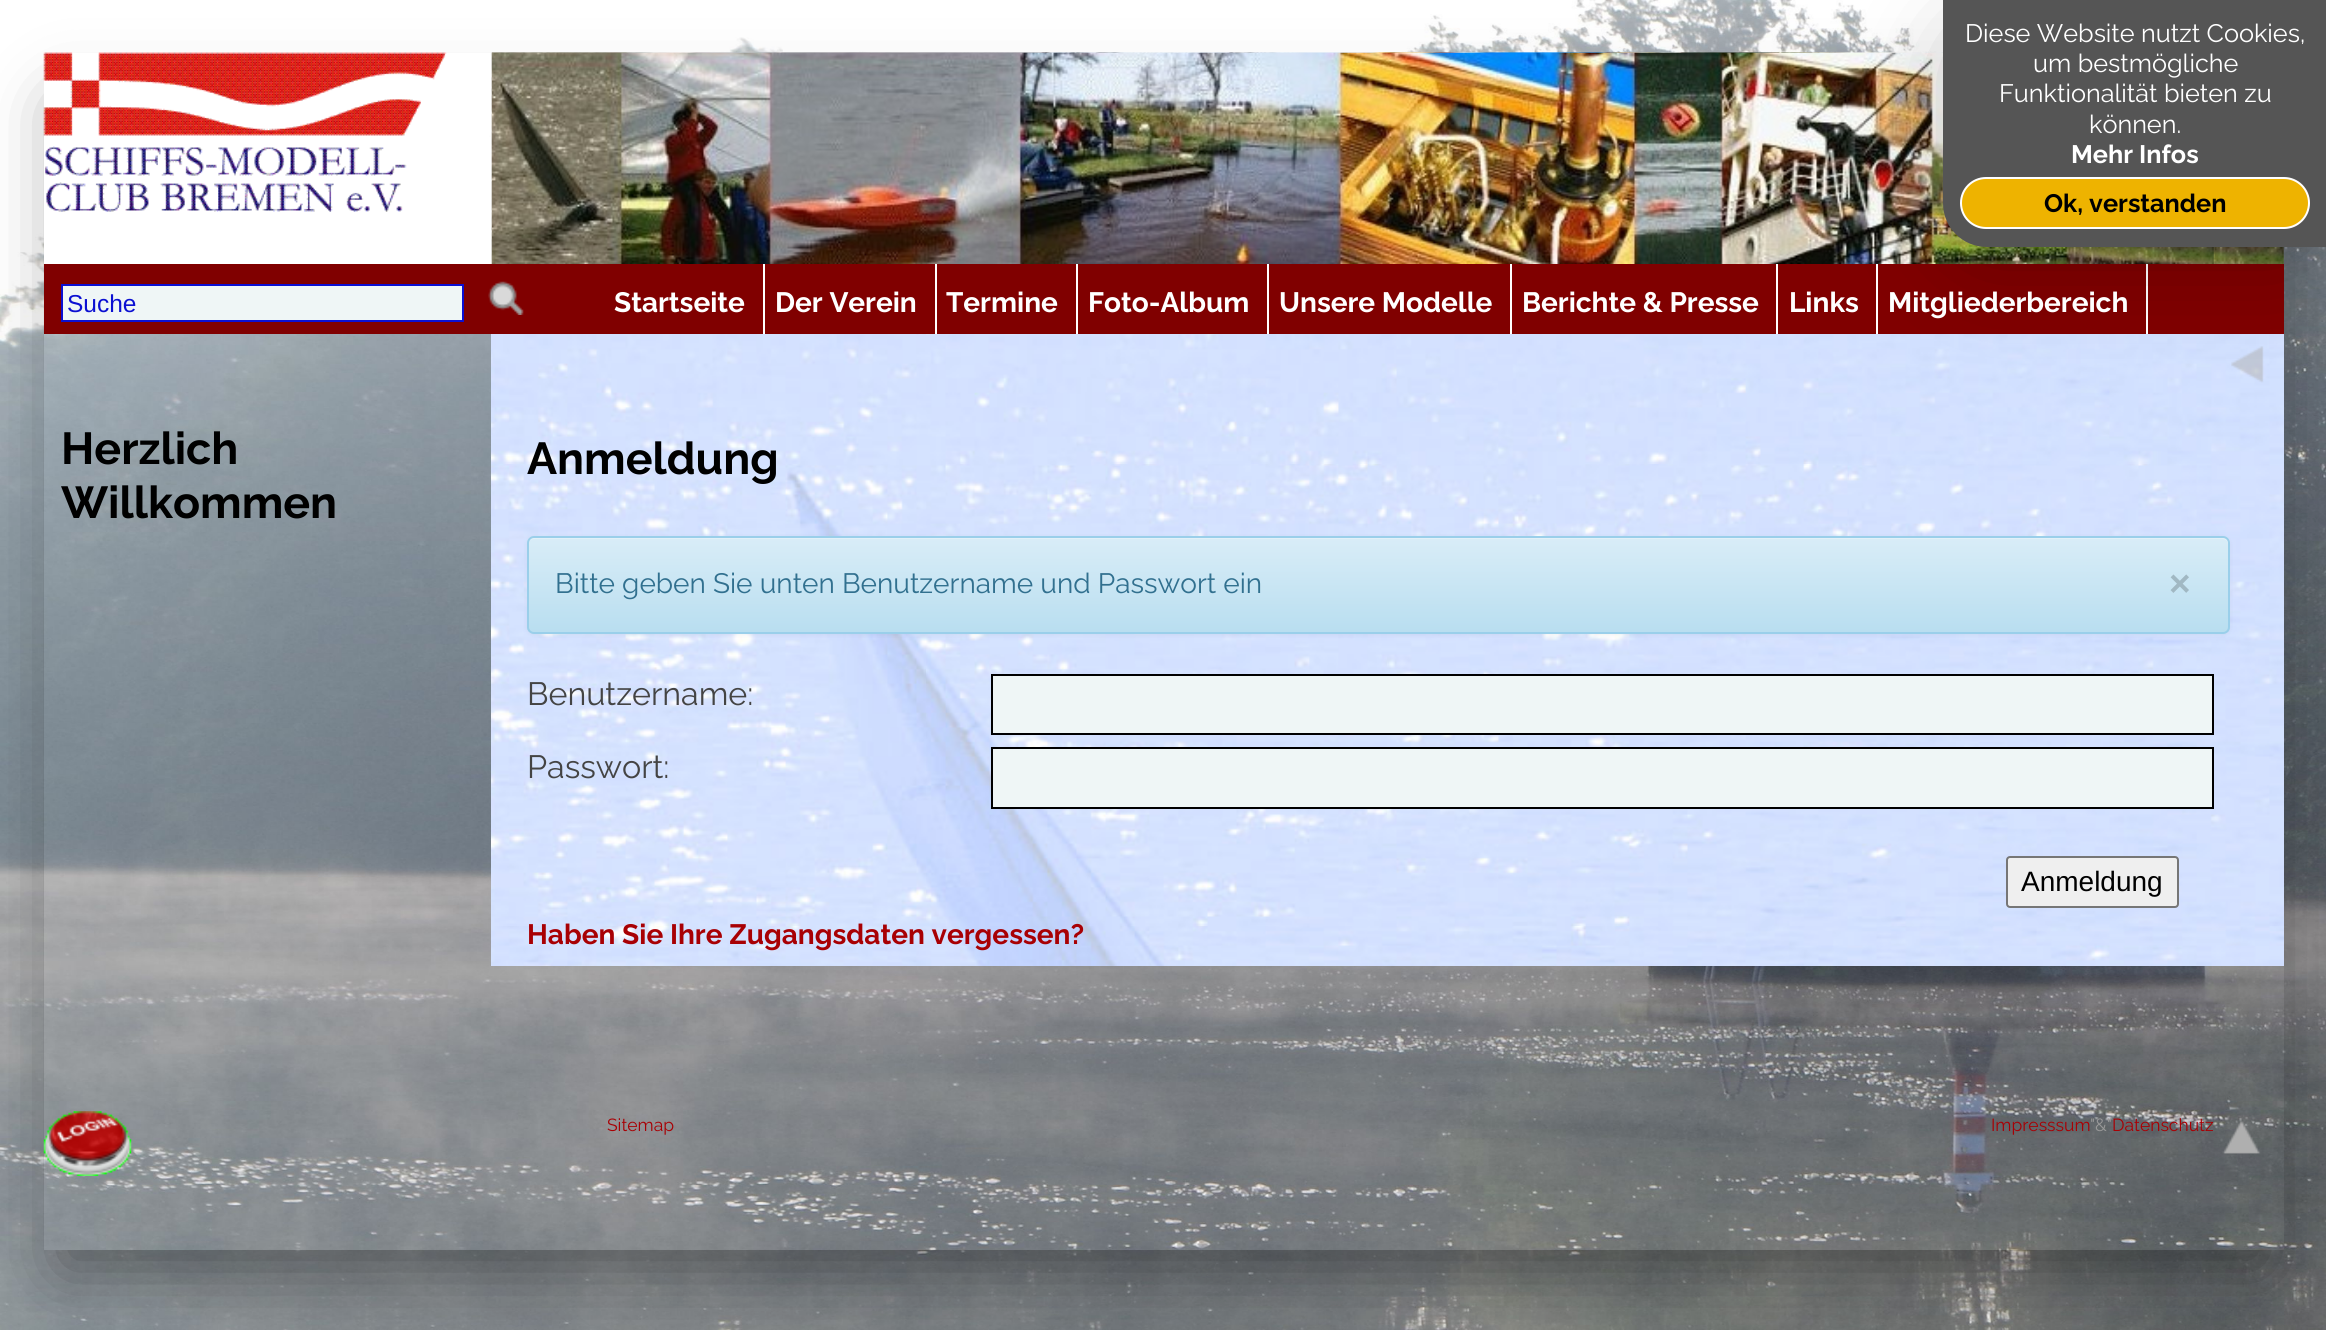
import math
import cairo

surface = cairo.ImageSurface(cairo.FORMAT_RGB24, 2326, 1330)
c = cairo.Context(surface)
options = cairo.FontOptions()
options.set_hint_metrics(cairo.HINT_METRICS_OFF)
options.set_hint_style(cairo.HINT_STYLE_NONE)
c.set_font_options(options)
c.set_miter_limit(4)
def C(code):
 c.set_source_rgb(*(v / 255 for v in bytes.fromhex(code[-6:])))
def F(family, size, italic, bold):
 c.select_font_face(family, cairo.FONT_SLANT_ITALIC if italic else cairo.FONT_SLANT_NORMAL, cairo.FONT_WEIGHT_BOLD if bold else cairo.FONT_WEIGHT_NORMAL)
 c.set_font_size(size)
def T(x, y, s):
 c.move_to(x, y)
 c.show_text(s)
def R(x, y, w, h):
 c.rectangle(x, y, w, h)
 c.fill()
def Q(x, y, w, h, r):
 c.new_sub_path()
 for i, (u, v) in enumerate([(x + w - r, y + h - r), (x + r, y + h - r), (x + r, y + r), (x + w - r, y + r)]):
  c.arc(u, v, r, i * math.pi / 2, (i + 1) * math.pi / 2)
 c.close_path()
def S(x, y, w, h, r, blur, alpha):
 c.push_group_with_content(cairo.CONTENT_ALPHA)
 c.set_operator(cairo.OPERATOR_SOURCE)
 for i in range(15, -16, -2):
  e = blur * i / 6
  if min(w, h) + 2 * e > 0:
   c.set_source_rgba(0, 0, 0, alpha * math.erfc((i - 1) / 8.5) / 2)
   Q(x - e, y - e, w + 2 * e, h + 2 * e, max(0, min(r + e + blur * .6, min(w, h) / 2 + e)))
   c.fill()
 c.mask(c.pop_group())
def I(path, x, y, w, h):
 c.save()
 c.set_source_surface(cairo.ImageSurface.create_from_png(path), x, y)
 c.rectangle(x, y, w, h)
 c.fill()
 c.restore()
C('ffffff')
c.paint()
I('1.png',0,0,1943,53)
I('2.png',0,53,2326,1277)
c.save()
c.set_fill_rule(cairo.FILL_RULE_EVEN_ODD)
c.new_path()
c.move_to(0,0)
c.line_to(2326,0)
c.line_to(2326,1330)
c.line_to(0,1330)
c.close_path()
c.move_to(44,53)
c.line_to(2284,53)
c.line_to(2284,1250)
c.line_to(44,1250)
c.close_path()
c.clip()
C('000000')
S(61,105,2205,1162,0,35,.4)
c.restore()
C('ffffff')
R(44,137,448,127)
I('4.png',491,52,1793,212)
I('5.png',491,52,1723,212)
C('800000')
R(44,264,2240,70)
C('ffffff')
R(1876,264,2,70)
R(2146,264,2,70)
I('7.png',491,334,1793,632)
I('8.png',2231,346,33,37)
C('000000')
S(1943,18,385,246,44,44,.2)
C('555555')
c.new_path()
c.move_to(1943,0)
c.line_to(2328,0)
c.line_to(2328,247)
c.line_to(1987,247)
c.curve_to(1962.5,247,1943,227.5,1943,203)
c.close_path()
c.fill()
F('Raleway',25.25,0,0)
C('ffffff')
T(1965,42,'Diese Website nutzt Cookies,')
T(2033,72,'um bestmögliche')
T(1999,102,'Funktionalität bieten zu')
T(2089,133,'können.')
F('Raleway',25.25,0,1)
T(2071,163,'Mehr Infos')
C('eeb300')
Q(1961,178,348,50,25)
c.fill_preserve()
C('ffffff')
c.stroke()
C('000000')
T(2044,212,'Ok, verstanden')
I('3.png',43,52,404,160)
C('eff6f6')
c.rectangle(62,285,401,36)
c.fill_preserve()
C('0b10d2')
c.stroke()
F('Liberation Sans',24.5,0,0)
T(67,312,'Suche')
I('6.png',488,281,36,34)
C('ffffff')
R(763,264,2,70)
F('Raleway',28,0,1)
T(614,312,'Startseite')
R(935,264,2,70)
T(775,312,'Der Verein')
R(1076,264,2,70)
T(946,312,'Termine')
R(1267,264,2,70)
T(1088,312,'Foto-Album')
R(1510,264,2,70)
T(1279,312,'Unsere Modelle')
R(1776,264,2,70)
T(1522,312,'Berichte & Presse')
T(1789,312,'Links')
T(1888,312,'Mitgliederbereich')
F('Raleway',44.75,0,1)
C('000000')
T(61,464,'Herzlich')
T(61,518,'Willkommen')
T(527,474,'Anmeldung')
C('000000')
S(527,537,1703,98,7,2,.05)
c.save()
Q(527,536,1703,98,7)
c.clip()
gradient = cairo.LinearGradient(1378,537,1378,632)
gradient.add_color_stop_rgba(0,0.851,0.929,0.969,1)
gradient.add_color_stop_rgba(1,0.725,0.871,0.941,1)
c.set_source(gradient)
R(527,537,1703,95)
c.restore()
C('e2f1f9')
c.new_path()
c.move_to(534,539)
c.line_to(2222,539)
c.curve_to(2225,539,2228,541,2228,544)
c.line_to(2228,542)
c.curve_to(2228,539,2226,537,2223,537)
c.line_to(534,537)
c.curve_to(532,537,529,539,529,541)
c.curve_to(530,540,532,539,534,539)
c.close_path()
c.fill()
Q(528,537,1701,96,6)
C('9acfea')
c.stroke()
F('Raleway',28,0,0)
C('31708f')
T(555,593,'Bitte geben Sie unten Benutzername und Passwort ein')
F('Liberation Sans',37,0,1)
C('a1b8c3')
T(2169,596,'×')
F('Raleway',32.25,0,0)
C('444444')
T(527,705,'Benutzername:')
C('eff6f6')
c.rectangle(992,675,1221,59)
c.fill_preserve()
C('000000')
c.stroke()
C('444444')
T(527,778,'Passwort:')
C('eff6f6')
c.rectangle(992,748,1221,60)
c.fill_preserve()
C('000000')
c.stroke()
C('efefef')
Q(2007,857,171,50,3)
c.fill_preserve()
C('767676')
c.stroke()
F('Liberation Sans',28,0,0)
C('000000')
T(2021,891,'Anmeldung')
F('Raleway',28,0,1)
C('a80004')
T(527,944,'Haben Sie Ihre Zugangsdaten vergessen?')
I('9.png',43,1111,89,65)
F('Raleway',17.5,0,0)
T(607,1131,'Sitemap')
T(1991,1131,'Impresssum')
C('999999')
T(2090,1131,'"&"')
C('a80004')
T(2112,1131,'Datenschutz')
I('10.png',2222,1121,38,33)
surface.write_to_png('o.png')
